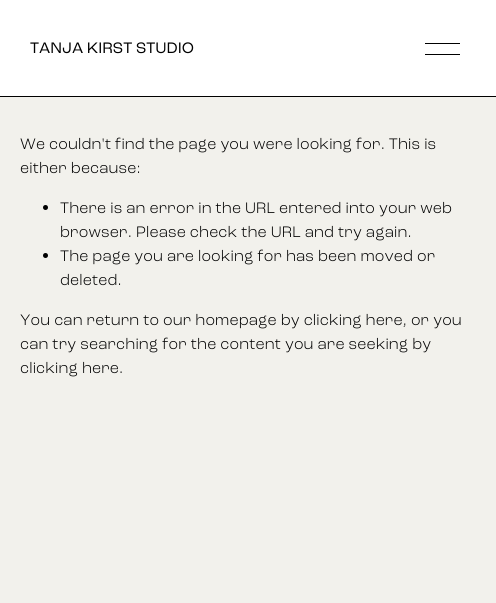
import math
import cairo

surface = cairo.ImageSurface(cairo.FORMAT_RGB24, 496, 603)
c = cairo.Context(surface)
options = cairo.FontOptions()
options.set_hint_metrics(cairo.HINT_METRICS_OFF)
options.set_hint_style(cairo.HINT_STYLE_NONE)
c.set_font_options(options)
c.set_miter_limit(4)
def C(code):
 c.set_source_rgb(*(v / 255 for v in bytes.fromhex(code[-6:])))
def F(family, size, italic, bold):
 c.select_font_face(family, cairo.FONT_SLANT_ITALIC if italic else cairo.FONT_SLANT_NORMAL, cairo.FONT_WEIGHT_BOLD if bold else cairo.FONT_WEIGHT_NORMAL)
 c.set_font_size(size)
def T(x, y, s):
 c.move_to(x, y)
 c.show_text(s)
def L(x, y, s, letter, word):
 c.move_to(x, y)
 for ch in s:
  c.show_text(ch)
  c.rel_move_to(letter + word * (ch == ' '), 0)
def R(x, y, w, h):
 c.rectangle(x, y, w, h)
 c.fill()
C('f2f1ec')
c.paint()
C('ffffff')
R(0,0,496,96)
F('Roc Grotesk',16,0,0)
C('000000')
T(30,53,'TANJA KIRST STUDIO')
R(425,43,35,1)
R(425,54,35,1)
R(0,96,496,1)
F('Roc Grotesk Light',16,0,0)
L(20,149,'We couldn\'t find the page you were looking for. This is',.15,0)
L(20,173,'either because:',.15,0)
c.new_path()
c.arc(45.5,207.5,2.5,0,2 * math.pi)
c.fill()
L(60,213,'There is an error in the URL entered into your web',.15,0)
L(60,237,'browser. Please check the URL and try again.',.15,0)
c.new_path()
c.arc(45.5,255.5,2.5,0,2 * math.pi)
c.fill()
L(60,261,'The page you are looking for has been moved or',.15,0)
L(60,285,'deleted.',.15,0)
L(20,325,'You can return to our homepage by clicking here, or you',.15,0)
L(20,349,'can try searching for the content you are seeking by',.15,0)
L(20,373,'clicking here.',.15,0)
surface.write_to_png('o.png')
